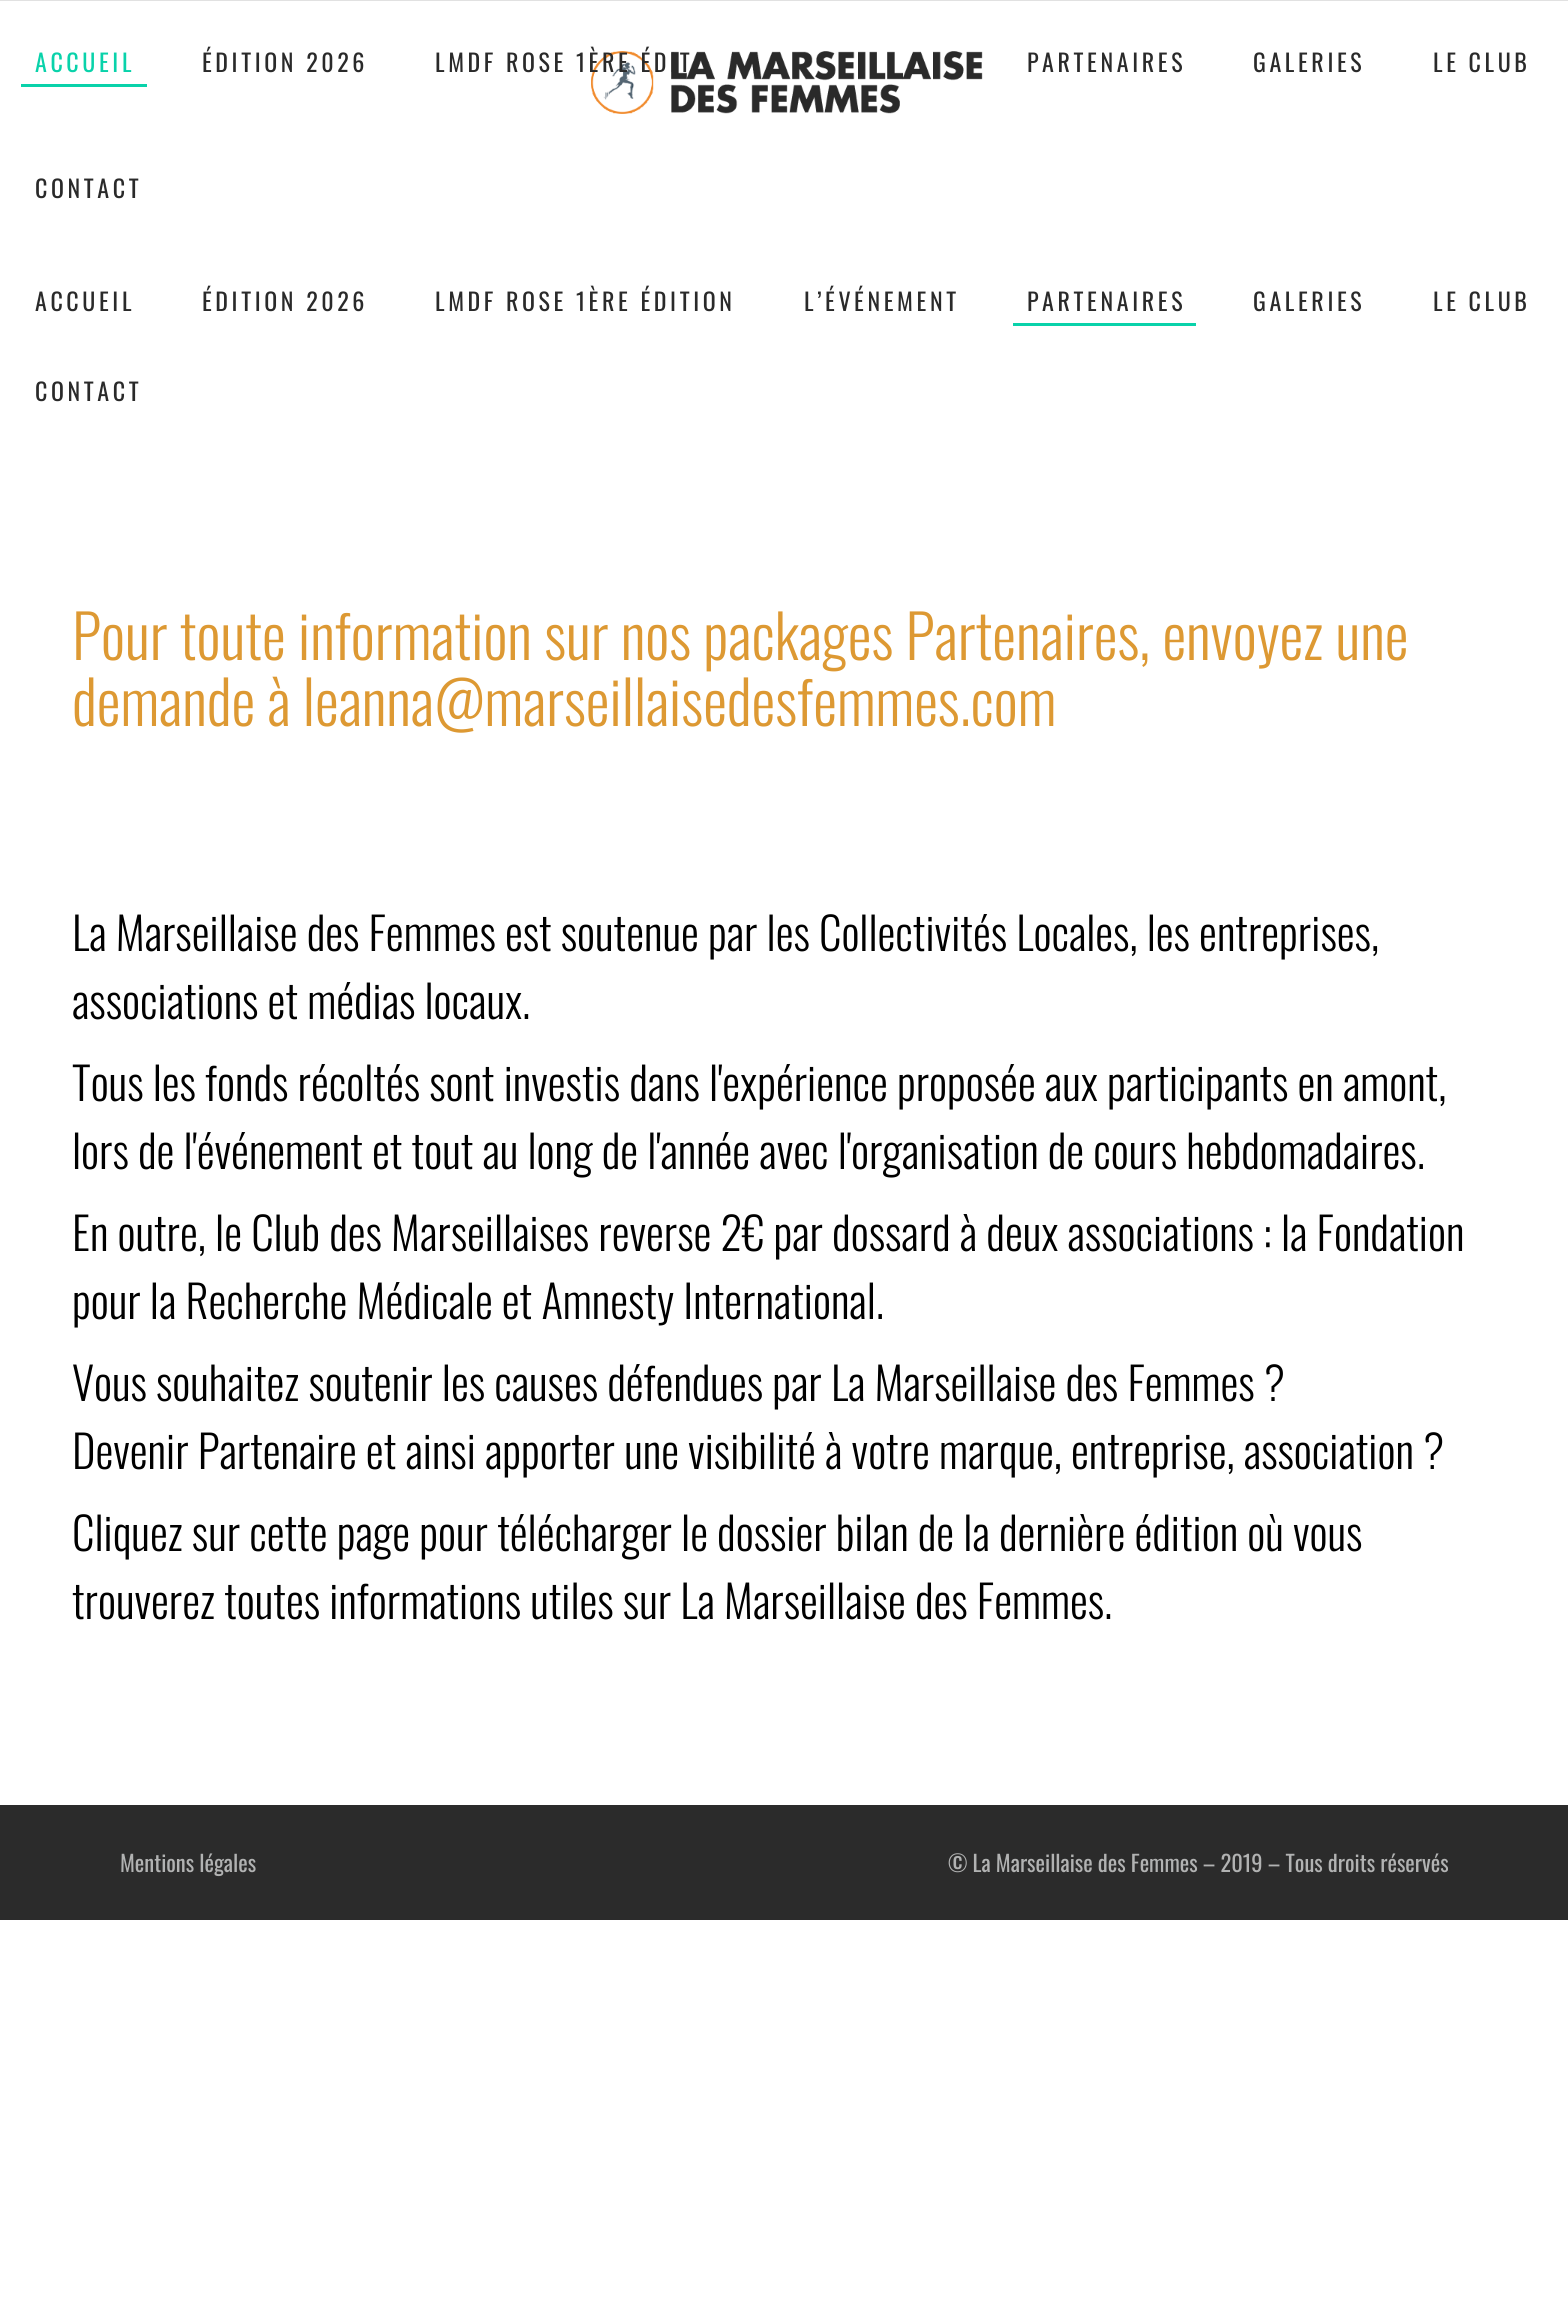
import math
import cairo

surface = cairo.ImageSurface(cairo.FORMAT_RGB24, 1568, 2310)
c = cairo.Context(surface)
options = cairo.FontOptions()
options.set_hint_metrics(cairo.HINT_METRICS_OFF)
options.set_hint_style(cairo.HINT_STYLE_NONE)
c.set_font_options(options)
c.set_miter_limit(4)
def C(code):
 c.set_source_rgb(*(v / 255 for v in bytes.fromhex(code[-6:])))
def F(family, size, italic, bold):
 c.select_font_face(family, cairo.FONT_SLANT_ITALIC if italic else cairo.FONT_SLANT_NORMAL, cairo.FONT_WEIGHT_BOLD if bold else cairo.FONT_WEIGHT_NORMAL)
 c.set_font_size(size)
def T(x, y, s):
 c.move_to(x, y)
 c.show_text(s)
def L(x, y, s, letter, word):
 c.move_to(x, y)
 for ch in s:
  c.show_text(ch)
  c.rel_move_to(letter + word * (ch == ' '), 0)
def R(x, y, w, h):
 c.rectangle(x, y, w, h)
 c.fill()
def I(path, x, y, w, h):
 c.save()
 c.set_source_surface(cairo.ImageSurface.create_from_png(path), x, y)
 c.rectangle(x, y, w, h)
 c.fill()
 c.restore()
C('ffffff')
c.paint()
C('e1e1e1')
R(0,0,1568,1)
F('Oswald',24,0,0)
C('09d2aa')
L(35,72,'ACCUEIL',3.6,0)
C('2a2a2a')
L(202,72,'ÉDITION 2026',3.6,0)
I('1.png',591,51,392,63)
L(435,72,'LMDF ROSE 1ÈRE ÉDIT',3.6,0)
L(1027,72,'PARTENAIRES',3.6,0)
L(1253,72,'GALERIES',3.6,0)
L(1433,72,'LE CLUB',3.6,0)
C('09d2aa')
R(21,84,126,3)
C('2a2a2a')
L(35,198,'CONTACT',3.6,0)
L(35,311,'ACCUEIL',3.6,0)
L(202,311,'ÉDITION 2026',3.6,0)
L(435,311,'LMDF ROSE 1ÈRE ÉDITION',3.6,0)
L(804,311,'L’ÉVÉNEMENT',3.6,0)
L(1027,311,'PARTENAIRES',3.6,0)
L(1253,311,'GALERIES',3.6,0)
L(1433,311,'LE CLUB',3.6,0)
C('09d2aa')
R(1013,323,183,3)
C('2a2a2a')
L(35,401,'CONTACT',3.6,0)
F('Oswald Light',60,0,0)
C('dd9933')
T(72,660,'Pour toute information sur nos packages Partenaires, envoyez une')
T(72,726,'demande à leanna@marseillaisedesfemmes.com')
F('Oswald Light',45,0,0)
C('000000')
T(72,951,'La Marseillaise des Femmes est soutenue par les Collectivités Locales, les entreprises,')
T(72,1019,'associations et médias locaux.')
T(72,1101,'Tous les fonds récoltés sont investis dans l\'expérience proposée aux participants en amont,')
T(72,1169,'lors de l\'événement et tout au long de l\'année avec l\'organisation de cours hebdomadaires.')
T(72,1251,'En outre, le Club des Marseillaises reverse 2€ par dossard à deux associations : la Fondation')
T(72,1319,'pour la Recherche Médicale et Amnesty International.')
T(72,1401,'Vous souhaitez soutenir les causes défendues par La Marseillaise des Femmes ?')
T(72,1469,'Devenir Partenaire et ainsi apporter une visibilité à votre marque, entreprise, association ?')
T(72,1551,'Cliquez sur cette page pour télécharger le dossier bilan de la dernière édition où vous')
T(72,1619,'trouverez toutes informations utiles sur La Marseillaise des Femmes.')
C('2b2b2b')
R(0,1805,1568,115)
F('Oswald',22.5,0,0)
C('b1b2b2')
T(120,1872,'Mentions légales')
T(948,1872,'© La Marseillaise des Femmes – 2019 – Tous droits réservés')
surface.write_to_png('o.png')
